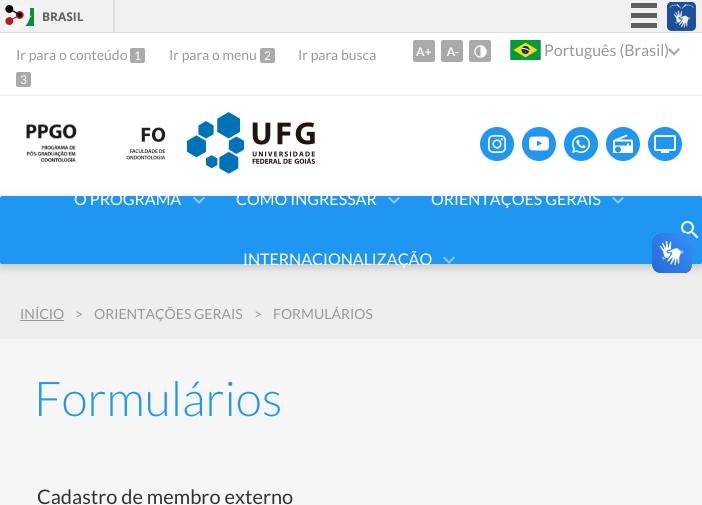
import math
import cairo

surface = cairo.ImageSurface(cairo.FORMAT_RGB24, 702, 505)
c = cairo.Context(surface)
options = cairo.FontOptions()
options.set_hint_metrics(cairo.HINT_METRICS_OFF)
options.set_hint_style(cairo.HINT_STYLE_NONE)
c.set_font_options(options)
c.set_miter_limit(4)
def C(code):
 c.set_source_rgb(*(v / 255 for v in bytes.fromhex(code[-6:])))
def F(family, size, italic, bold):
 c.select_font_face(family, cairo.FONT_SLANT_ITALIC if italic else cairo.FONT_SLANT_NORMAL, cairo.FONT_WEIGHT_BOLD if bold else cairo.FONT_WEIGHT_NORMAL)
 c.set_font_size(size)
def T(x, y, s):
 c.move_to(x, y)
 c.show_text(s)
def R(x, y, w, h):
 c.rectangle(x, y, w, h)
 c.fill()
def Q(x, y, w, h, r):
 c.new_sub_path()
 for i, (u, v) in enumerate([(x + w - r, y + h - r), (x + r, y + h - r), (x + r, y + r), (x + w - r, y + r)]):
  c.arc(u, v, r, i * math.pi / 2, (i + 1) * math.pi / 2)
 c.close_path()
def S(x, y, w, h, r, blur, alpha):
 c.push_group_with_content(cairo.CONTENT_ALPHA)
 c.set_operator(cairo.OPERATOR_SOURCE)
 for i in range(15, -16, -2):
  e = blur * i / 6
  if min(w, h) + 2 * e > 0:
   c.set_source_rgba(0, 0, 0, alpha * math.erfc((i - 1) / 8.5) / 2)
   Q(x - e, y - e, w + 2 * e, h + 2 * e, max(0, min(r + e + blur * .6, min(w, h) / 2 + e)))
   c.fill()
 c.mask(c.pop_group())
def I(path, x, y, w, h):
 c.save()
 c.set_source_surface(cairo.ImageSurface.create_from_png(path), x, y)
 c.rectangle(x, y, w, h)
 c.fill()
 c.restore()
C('f6f6f6')
c.paint()
C('f1f1f1')
R(0,0,702,32)
I('2.png',25,8,9,18)
I('1.png',5,5,25,25)
C('dfdfdf')
R(0,32,702,1)
R(113,0,2,32)
F('Open Sans',12,0,1)
C('606060')
T(42,21,'BRASIL')
R(631,3,26,5)
R(631,13,26,5)
R(631,23,26,5)
I('3.png',667,2,29,29)
C('ffffff')
R(0,33,702,62)
C('ececec')
R(0,95,702,1)
F('Lato',14,0,0)
C('999999')
T(16,60,'Ir para o conteúdo')
C('aaaaaa')
Q(130,48,15,15,2)
c.fill()
F('Lato',12,0,0)
C('ffffff')
T(134,60,'1')
F('Lato',14,0,0)
C('999999')
T(298,60,'Ir para busca')
C('aaaaaa')
Q(16,72,15,15,2)
c.fill()
F('Lato',12,0,0)
C('ffffff')
T(20,84,'3')
F('Lato',14,0,0)
C('999999')
T(169,60,'Ir para o menu')
C('aaaaaa')
Q(260,48,15,15,2)
c.fill()
F('Lato',12,0,0)
C('ffffff')
T(264,60,'2')
C('aaaaaa')
Q(413,40,22,22,2)
c.fill()
I('4.png',416,47,15,9)
Q(441,40,22,22,2)
c.fill()
I('5.png',446,47,13,9)
Q(469,40,22,22,2)
c.fill()
I('6.png',474,45,13,13)
I('7.png',668,47,12,9)
I('8.png',510,40,31,20)
F('Lato',16,0,0)
C('999999')
T(544,56,'Português (Brasil)')
C('ffffff')
R(0,96,702,102)
I('9.png',26,124,51,38)
I('10.png',126,127,40,33)
I('11.png',187,112,128,62)
C('2096f3')
c.arc(497,144,17,0,2 * math.pi)
c.fill()
I('12.png',488,135,18,18)
c.arc(539,144,17,0,2 * math.pi)
c.fill()
I('13.png',529,136,20,15)
c.arc(581,144,17,0,2 * math.pi)
c.fill()
I('14.png',572,135,18,18)
c.arc(623,144,17,0,2 * math.pi)
c.fill()
I('15.png',613,134,20,19)
c.arc(665,144,17,0,2 * math.pi)
c.fill()
I('16.png',654,135,22,18)
C('eeeeee')
R(0,262,702,77)
C('000000')
S(0,199,702,68,2,5,.2)
C('2096f3')
Q(0,196,702,68,2)
c.fill()
C('ffffff')
T(74,205,'O PROGRAMA')
I('17.png',193,196,12,8)
T(236,205,'COMO INGRESSAR')
I('17.png',388,196,12,8)
T(431,205,'ORIENTAÇÕES GERAIS')
I('17.png',612,196,12,8)
T(243,265,'INTERNACIONALIZAÇÃO')
I('17.png',443,256,12,8)
I('18.png',681,221,18,18)
F('Lato',14,0,0)
C('999999')
T(20,319,'INÍCIO')
R(20,320,44,1)
T(75,319,'>')
T(94,319,'ORIENTAÇÕES GERAIS')
T(254,319,'>')
T(273,319,'FORMULÁRIOS')
I('19.png',652,233,40,40)
I('20.png',652,233,40,40)
F('Lato Light',48,0,0)
C('2096f3')
T(34,416,'Formulários')
F('Lato',20,0,0)
C('333333')
T(37,504,'Cadastro de membro externo')
surface.write_to_png('o.png')
